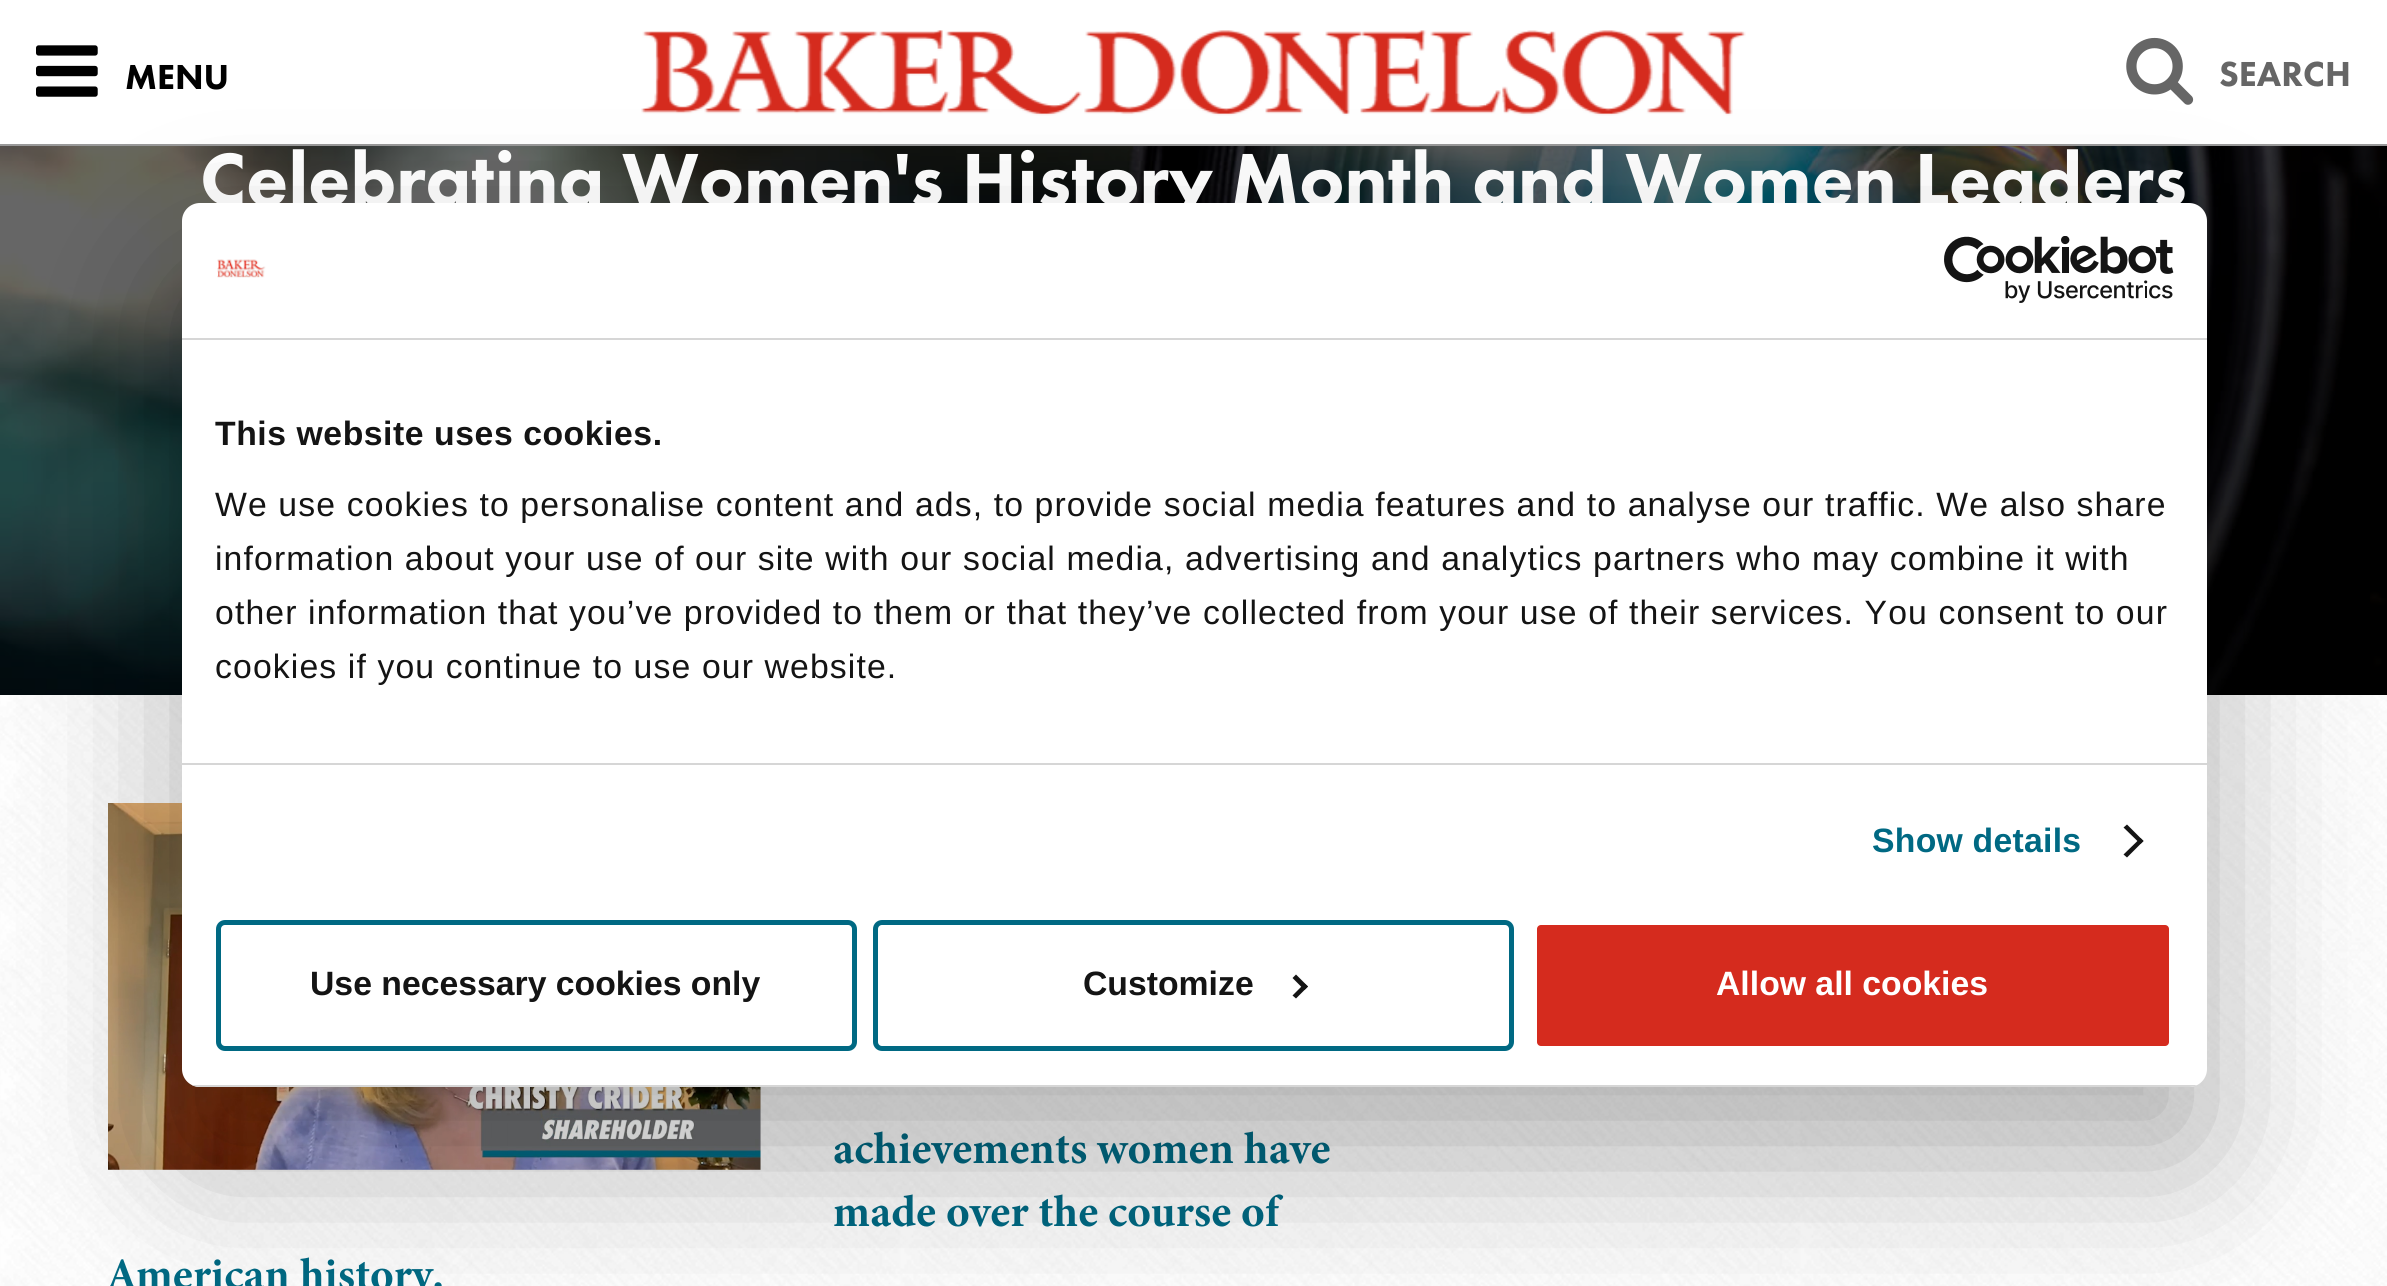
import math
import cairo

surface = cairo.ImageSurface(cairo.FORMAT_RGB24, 2387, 1286)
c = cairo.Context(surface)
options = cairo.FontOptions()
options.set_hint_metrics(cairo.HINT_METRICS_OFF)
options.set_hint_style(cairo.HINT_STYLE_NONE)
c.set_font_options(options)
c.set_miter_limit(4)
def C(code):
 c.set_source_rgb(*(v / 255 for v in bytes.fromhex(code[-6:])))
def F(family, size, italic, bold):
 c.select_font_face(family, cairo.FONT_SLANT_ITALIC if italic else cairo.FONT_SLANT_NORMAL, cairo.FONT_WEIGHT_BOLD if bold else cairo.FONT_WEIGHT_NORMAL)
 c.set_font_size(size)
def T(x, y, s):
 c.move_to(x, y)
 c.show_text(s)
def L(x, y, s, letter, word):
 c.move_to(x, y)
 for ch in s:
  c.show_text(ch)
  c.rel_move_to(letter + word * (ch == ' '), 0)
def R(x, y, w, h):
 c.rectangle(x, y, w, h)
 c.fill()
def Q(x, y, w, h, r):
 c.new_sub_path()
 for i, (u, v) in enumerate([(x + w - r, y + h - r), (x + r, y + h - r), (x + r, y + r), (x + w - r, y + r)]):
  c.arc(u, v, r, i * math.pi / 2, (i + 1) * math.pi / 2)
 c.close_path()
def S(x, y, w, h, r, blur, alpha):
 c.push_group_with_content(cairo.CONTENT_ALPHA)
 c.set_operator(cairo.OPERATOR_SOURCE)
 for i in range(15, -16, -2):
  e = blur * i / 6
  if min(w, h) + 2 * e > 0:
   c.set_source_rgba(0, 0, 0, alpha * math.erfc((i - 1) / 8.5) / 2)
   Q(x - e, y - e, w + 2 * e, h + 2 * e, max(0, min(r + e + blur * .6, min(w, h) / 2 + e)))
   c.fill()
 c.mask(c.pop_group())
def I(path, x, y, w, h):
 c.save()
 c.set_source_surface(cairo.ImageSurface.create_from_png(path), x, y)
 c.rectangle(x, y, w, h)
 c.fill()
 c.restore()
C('ffffff')
c.paint()
C('999999')
R(0,144,2387,2)
I('1.png',36,45,62,52)
F('Futura PT Black',36,0,0)
C('000000')
T(125,89,'MENU')
I('2.png',641,30,1105,86)
I('3.png',2126,37,68,68)
C('666666')
T(2219,86,'SEARCH')
I('4.png',0,146,2387,549)
F('Futura PT Black',76.5,0,0)
C('ffffff')
T(200,205,'Celebrating Women\'s History Month and Women Leaders')
I('5.png',0,695,2387,591)
c.set_source_rgba(0,0,0,0.05)
R(108,1087,653,83)
I('6.png',108,803,653,367)
F('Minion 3',45,0,1)
C('006983')
T(833,1163,'achievements women have')
T(833,1226,'made over the course of')
T(108,1289,'American history.')
C('000000')
S(182,275,2025,884,18,76.5,.3)
C('ffffff')
Q(182,203,2025,884,18)
c.fill()
C('d6d6d6')
R(182,338,2025,2)
I('7.png',217,259,49,19)
I('8.png',1944,236,230,67)
R(182,763,2025,2)
F('Liberation Sans',33.75,0,1)
C('141414')
L(215,445,'This website uses cookies.',.55,0)
F('Liberation Sans',33.75,0,0)
L(215,516,'We use cookies to personalise content and ads, to provide social media features and to analyse our traffic. We also share',1.12,0)
L(215,570,'information about your use of our site with our social media, advertising and analytics partners who may combine it with',1.12,0)
L(215,624,'other information that you’ve provided to them or that they’ve collected from your use of their services. You consent to our',1.12,0)
L(215,678,'cookies if you continue to use our website.',1.12,0)
F('Liberation Sans',33.75,0,1)
C('006983')
L(1872,852,'Show details',.25,0)
C('141414')
c.new_path()
c.move_to(2127,824.5)
c.line_to(2143.5,841)
c.line_to(2140.5,844)
c.line_to(2123.5,827.5)
c.close_path()
c.fill()
c.new_path()
c.move_to(2140.5,838)
c.line_to(2143.5,841)
c.line_to(2127,857.5)
c.line_to(2123.5,854.5)
c.close_path()
c.fill()
c.save()
Q(182,203,2025,884,18)
c.clip()
C('d6d6d6')
R(192,1085,2005,2)
c.restore()
Q(218.5,922.5,636,126,6.5)
C('006983')
c.set_line_width(5)
c.stroke()
C('141414')
T(310,995,'Use necessary cookies only')
Q(875.5,922.5,636,126,6.5)
C('006983')
c.stroke()
C('141414')
T(1083,995,'Customize')
c.new_path()
c.move_to(1296,974.5)
c.line_to(1308,986.5)
c.line_to(1304.5,990)
c.line_to(1292.5,978)
c.close_path()
c.fill()
c.new_path()
c.move_to(1304.5,983.5)
c.line_to(1308,986.5)
c.line_to(1296,998.5)
c.line_to(1292.5,995.5)
c.close_path()
c.fill()
C('d52b1e')
Q(1534.5,922.5,637,126,6.5)
c.fill_preserve()
C('ffffff')
c.stroke()
T(1716,995,'Allow all cookies')
surface.write_to_png('o.png')
